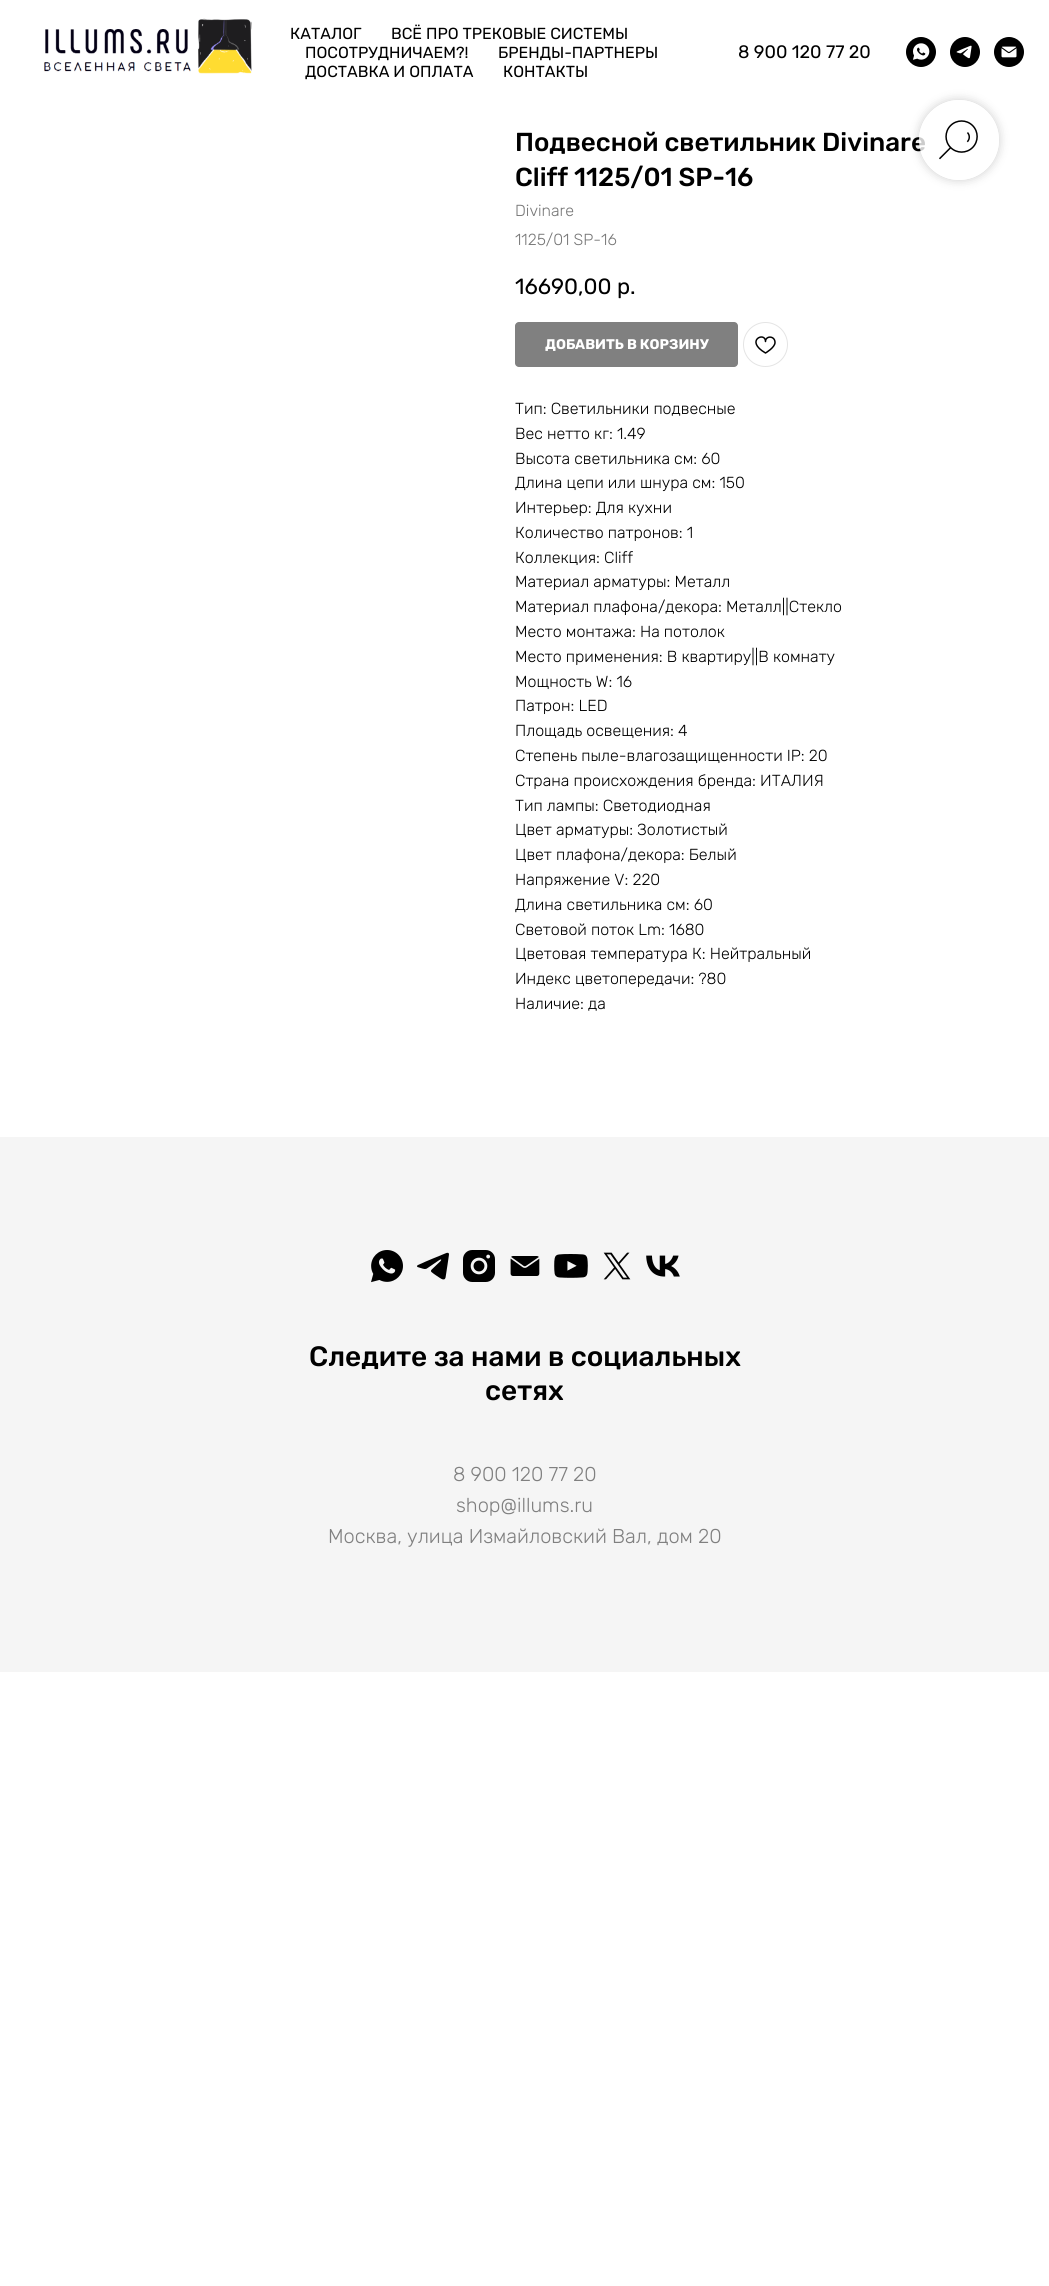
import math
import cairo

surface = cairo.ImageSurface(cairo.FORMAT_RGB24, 1049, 2286)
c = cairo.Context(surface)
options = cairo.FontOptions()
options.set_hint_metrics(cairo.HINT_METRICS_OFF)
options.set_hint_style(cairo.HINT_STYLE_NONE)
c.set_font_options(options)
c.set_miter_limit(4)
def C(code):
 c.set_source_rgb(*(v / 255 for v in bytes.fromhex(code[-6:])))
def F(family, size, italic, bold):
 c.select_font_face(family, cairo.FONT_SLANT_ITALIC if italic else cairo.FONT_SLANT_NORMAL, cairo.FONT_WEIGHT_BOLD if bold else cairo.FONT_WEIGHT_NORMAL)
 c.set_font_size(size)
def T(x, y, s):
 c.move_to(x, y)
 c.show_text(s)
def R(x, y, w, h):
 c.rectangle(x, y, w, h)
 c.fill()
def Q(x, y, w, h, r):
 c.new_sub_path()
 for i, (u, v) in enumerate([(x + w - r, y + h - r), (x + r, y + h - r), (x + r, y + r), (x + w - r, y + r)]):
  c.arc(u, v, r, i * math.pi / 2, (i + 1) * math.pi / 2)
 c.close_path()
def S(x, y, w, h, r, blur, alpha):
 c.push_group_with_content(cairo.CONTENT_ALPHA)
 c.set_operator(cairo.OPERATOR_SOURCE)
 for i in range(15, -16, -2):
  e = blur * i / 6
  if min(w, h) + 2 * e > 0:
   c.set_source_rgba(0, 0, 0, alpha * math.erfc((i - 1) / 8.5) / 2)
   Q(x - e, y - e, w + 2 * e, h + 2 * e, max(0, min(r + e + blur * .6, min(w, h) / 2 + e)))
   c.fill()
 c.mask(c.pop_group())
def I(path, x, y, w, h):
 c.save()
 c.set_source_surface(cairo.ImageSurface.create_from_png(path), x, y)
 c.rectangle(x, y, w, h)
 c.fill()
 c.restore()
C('ffffff')
c.paint()
I('1.png',44,18,208,56)
F('Rubik',16,0,0)
C('000000')
T(290,39,'КАТАЛОГ')
T(391,39,'ВСЁ ПРО ТРЕКОВЫЕ СИСТЕМЫ')
T(305,58,'ПОСОТРУДНИЧАЕМ?!')
T(498,58,'БРЕНДЫ-ПАРТНЕРЫ')
T(305,77,'ДОСТАВКА И ОПЛАТА')
T(503,77,'КОНТАКТЫ')
F('Rubik',18,0,0)
T(738,58,'8 900 120 77 20')
I('2.png',906,37,30,30)
I('3.png',950,37,30,30)
I('4.png',994,37,30,30)
c.save()
c.set_fill_rule(cairo.FILL_RULE_EVEN_ODD)
c.new_path()
c.move_to(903,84)
c.line_to(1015,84)
c.line_to(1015,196)
c.line_to(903,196)
c.close_path()
c.move_to(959,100)
c.curve_to(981,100,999,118,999,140)
c.curve_to(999,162,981,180,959,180)
c.curve_to(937,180,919,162,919,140)
c.curve_to(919,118,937,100,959,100)
c.close_path()
c.clip()
C('000000')
S(919,100,80,80,40,5,.2)
c.restore()
F('Rubik Medium',26,0,0)
T(515,151,'Подвесной светильник Divinare')
c.set_source_rgba(1,1,1,0.8)
c.new_path()
c.arc(959,140,40,0,2 * math.pi)
c.fill()
I('5.png',939,120,39,40)
C('000000')
T(515,186,'Cliff 1125/01 SP-16')
F('Rubik Light',16,0,0)
C('777777')
T(515,216,'Divinare')
T(515,245,'1125/01 SP-16')
F('Rubik',22,0,0)
C('000000')
T(515,294,'16690,00')
T(617,294,'р.')
C('808080')
Q(515,322,223,45,4)
c.fill()
F('Rubik',14,0,1)
C('ffffff')
T(545,349,'ДОБАВИТЬ В КОРЗИНУ')
c.new_path()
c.arc(765.5,344.5,22,0,2 * math.pi)
C('e4e4e4')
c.set_line_width(1)
c.stroke()
c.new_path()
c.move_to(775,342.5)
c.curve_to(775,347.5,765.5,353,765.5,353)
c.curve_to(744,340.5,765.5,331,765.5,341.5)
c.curve_to(765.5,335.5,775,335.5,775,342.5)
c.close_path()
C('000000')
c.set_line_width(1.5)
c.set_line_join(cairo.LINE_JOIN_ROUND)
c.stroke()
F('Rubik Light',16,0,0)
T(515,414,'Тип: Светильники подвесные')
T(515,439,'Вес нетто кг: 1.49')
T(515,464,'Высота светильника см: 60')
T(515,488,'Длина цепи или шнура см: 150')
T(515,513,'Интерьер: Для кухни')
T(515,538,'Количество патронов: 1')
T(515,563,'Коллекция: Cliff')
T(515,587,'Материал арматуры: Металл')
T(515,612,'Материал плафона/декора: Металл||Стекло')
T(515,637,'Место монтажа: На потолок')
T(515,662,'Место применения: В квартиру||В комнату')
T(515,687,'Мощность W: 16')
T(515,711,'Патрон: LED')
T(515,736,'Площадь освещения: 4')
T(515,761,'Степень пыле-влагозащищенности IP: 20')
T(515,786,'Страна происхождения бренда: ИТАЛИЯ')
T(515,811,'Тип лампы: Светодиодная')
T(515,835,'Цвет арматуры: Золотистый')
T(515,860,'Цвет плафона/декора: Белый')
T(515,885,'Напряжение V: 220')
T(515,910,'Длина светильника см: 60')
T(515,935,'Световой поток Lm: 1680')
T(515,959,'Цветовая температура К: Нейтральный')
T(515,984,'Индекс цветопередачи: ?80')
T(515,1009,'Наличие: да')
C('f5f5f5')
R(0,1137,1049,535)
I('6.png',371,1250,32,33)
I('7.png',417,1252,32,28)
I('8.png',463,1250,32,32)
I('9.png',510,1256,30,20)
I('10.png',554,1254,34,24)
I('11.png',603,1252,28,28)
I('12.png',646,1255,34,22)
F('Rubik Medium',28,0,0)
C('000000')
T(309,1366,'Следите за нами в социальных')
T(485,1400,'сетях')
F('Rubik Light',20,0,0)
C('808080')
T(453,1481,'8 900 120 77 20')
T(456,1512,'shop@illums.ru')
T(328,1543,'Москва, улица Измайловский Вал, дом 20')
surface.write_to_png('o.png')
